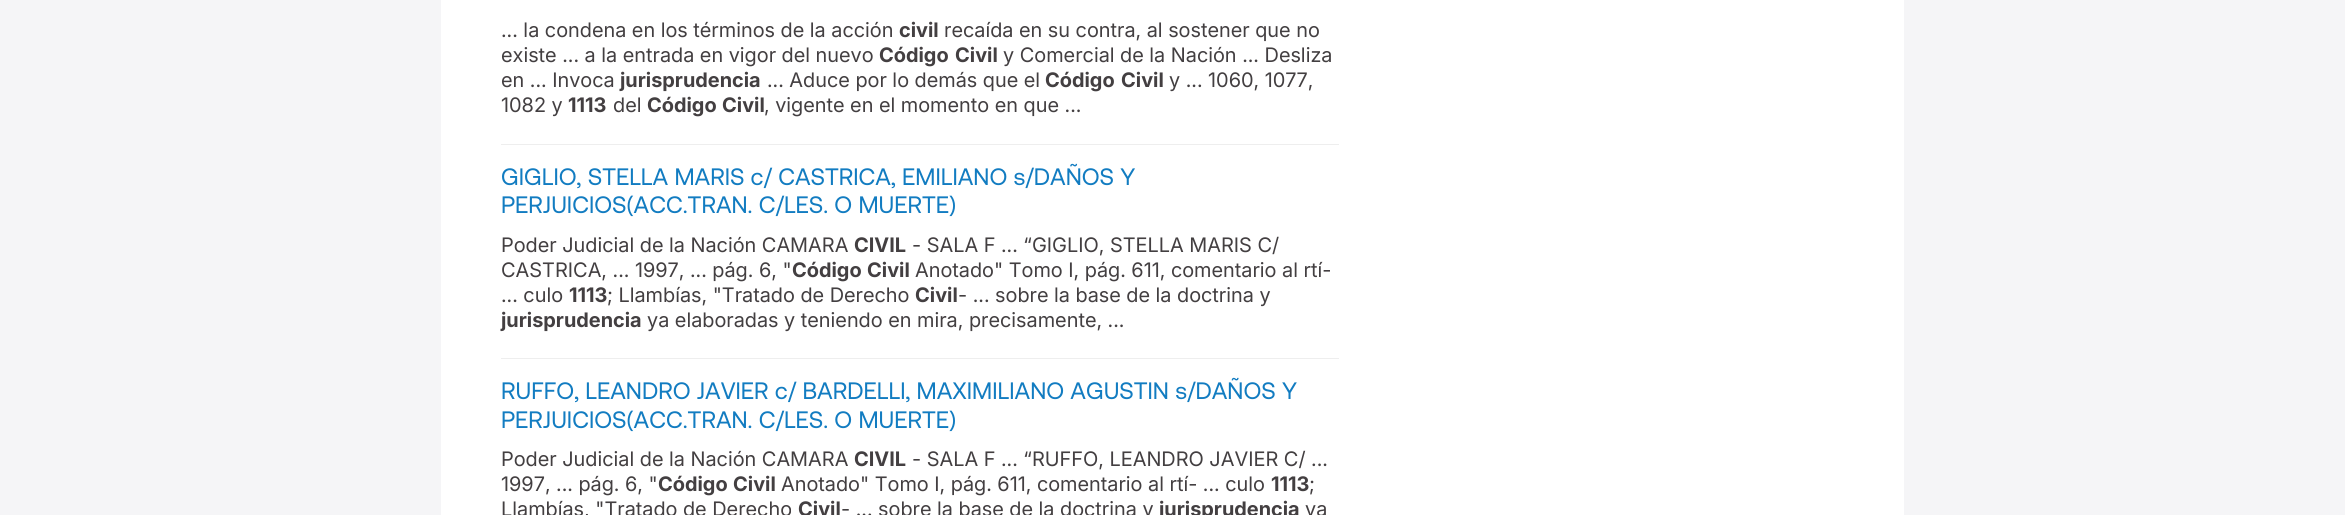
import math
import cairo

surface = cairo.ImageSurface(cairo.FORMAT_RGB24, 2345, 515)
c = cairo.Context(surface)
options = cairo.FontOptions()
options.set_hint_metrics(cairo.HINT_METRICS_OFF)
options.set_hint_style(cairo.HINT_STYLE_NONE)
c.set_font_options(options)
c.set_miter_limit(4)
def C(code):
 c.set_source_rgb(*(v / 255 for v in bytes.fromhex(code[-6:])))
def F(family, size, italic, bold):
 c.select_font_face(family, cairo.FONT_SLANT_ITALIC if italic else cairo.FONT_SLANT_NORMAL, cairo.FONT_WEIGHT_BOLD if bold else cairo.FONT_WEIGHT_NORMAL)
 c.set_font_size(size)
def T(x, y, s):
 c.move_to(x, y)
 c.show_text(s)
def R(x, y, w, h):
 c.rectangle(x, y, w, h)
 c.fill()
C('f5f5f7')
c.paint()
C('ffffff')
R(441,0,1463,515)
C('eeeeee')
R(501,144,838,1)
F('Inter',20,0,0)
C('433f41')
T(501,37,'... la condena en los términos de la acción')
F('Inter',20,0,1)
T(899,37,'civil')
F('Inter',20,0,0)
T(944,37,'recaída en su contra, al sostener que no')
T(501,62,'existe ... a la entrada en vigor del nuevo')
F('Inter',20,0,1)
T(879,62,'Código')
T(955,62,'Civil')
F('Inter',20,0,0)
T(1003,62,'y Comercial de la Nación ... Desliza')
T(501,87,'en ... Invoca')
F('Inter',20,0,1)
T(620,87,'jurisprudencia')
F('Inter',20,0,0)
T(767,87,'... Aduce por lo demás que el')
F('Inter',20,0,1)
T(1045,87,'Código')
T(1121,87,'Civil')
F('Inter',20,0,0)
T(1169,87,'y ... 1060, 1077,')
T(501,112,'1082 y')
F('Inter',20,0,1)
T(568,112,'1113')
F('Inter',20,0,0)
T(613,112,'del')
F('Inter',20,0,1)
T(647,112,'Código')
T(722,112,'Civil')
F('Inter',20,0,0)
T(764,112,', vigente en el momento en que ...')
C('eeeeee')
R(501,358,838,1)
F('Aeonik',23.75,0,0)
C('127cc1')
T(501,185,'GIGLIO, STELLA MARIS c/ CASTRICA, EMILIANO s/DAÑOS Y')
T(501,213,'PERJUICIOS(ACC.TRAN. C/LES. O MUERTE)')
F('Inter',20,0,0)
C('433f41')
T(501,252,'Poder Judicial de la Nación CAMARA')
F('Inter',20,0,1)
T(854,252,'CIVIL')
F('Inter',20,0,0)
T(912,252,'- SALA F ... “GIGLIO, STELLA MARIS C/')
T(501,277,'CASTRICA, ... 1997, ... pág. 6, "')
F('Inter',20,0,1)
T(792,277,'Código')
T(867,277,'Civil')
F('Inter',20,0,0)
T(915,277,'Anotado" Tomo I, pág. 611, comentario al rtí-')
T(501,302,'... culo')
F('Inter',20,0,1)
T(569,302,'1113')
F('Inter',20,0,0)
T(607,302,'; Llambías, "Tratado de Derecho')
F('Inter',20,0,1)
T(915,302,'Civil')
F('Inter',20,0,0)
T(958,302,'- ... sobre la base de la doctrina y')
F('Inter',20,0,1)
T(501,327,'jurisprudencia')
F('Inter',20,0,0)
T(647,327,'ya elaboradas y teniendo en mira, precisamente, ...')
F('Aeonik',23.75,0,0)
C('127cc1')
T(501,399,'RUFFO, LEANDRO JAVIER c/ BARDELLI, MAXIMILIANO AGUSTIN s/DAÑOS Y')
T(501,428,'PERJUICIOS(ACC.TRAN. C/LES. O MUERTE)')
F('Inter',20,0,0)
C('433f41')
T(501,466,'Poder Judicial de la Nación CAMARA')
F('Inter',20,0,1)
T(854,466,'CIVIL')
F('Inter',20,0,0)
T(912,466,'- SALA F ... “RUFFO, LEANDRO JAVIER C/ ...')
T(501,491,'1997, ... pág. 6, "')
F('Inter',20,0,1)
T(658,491,'Código')
T(733,491,'Civil')
F('Inter',20,0,0)
T(781,491,'Anotado" Tomo I, pág. 611, comentario al rtí- ... culo')
F('Inter',20,0,1)
T(1271,491,'1113')
F('Inter',20,0,0)
T(1309,491,';')
T(501,516,'Llambías, "Tratado de Derecho')
F('Inter',20,0,1)
T(798,516,'Civil')
F('Inter',20,0,0)
T(841,516,'- ... sobre la base de la doctrina y')
F('Inter',20,0,1)
T(1159,516,'jurisprudencia')
F('Inter',20,0,0)
T(1305,516,'ya')
surface.write_to_png('o.png')
